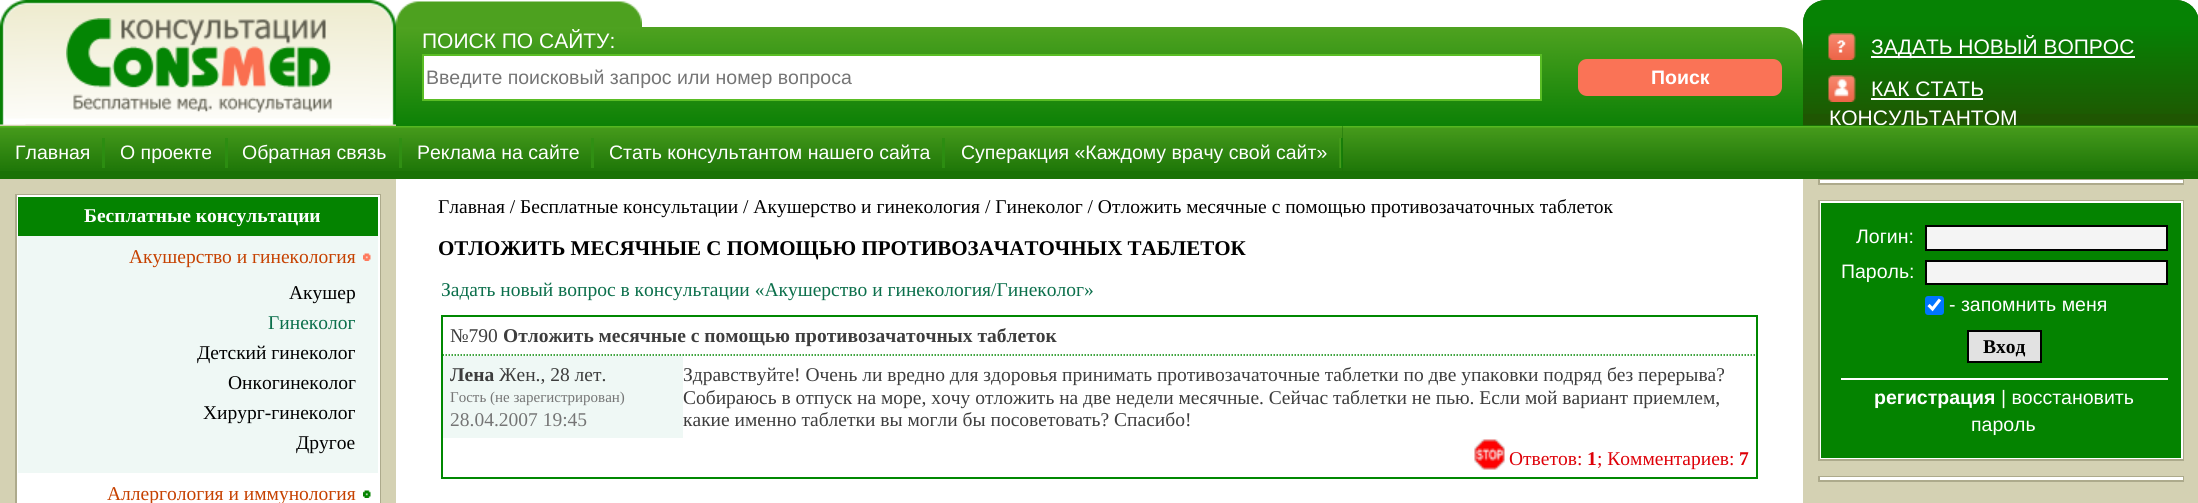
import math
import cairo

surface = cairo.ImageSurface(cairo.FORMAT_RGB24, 2198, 503)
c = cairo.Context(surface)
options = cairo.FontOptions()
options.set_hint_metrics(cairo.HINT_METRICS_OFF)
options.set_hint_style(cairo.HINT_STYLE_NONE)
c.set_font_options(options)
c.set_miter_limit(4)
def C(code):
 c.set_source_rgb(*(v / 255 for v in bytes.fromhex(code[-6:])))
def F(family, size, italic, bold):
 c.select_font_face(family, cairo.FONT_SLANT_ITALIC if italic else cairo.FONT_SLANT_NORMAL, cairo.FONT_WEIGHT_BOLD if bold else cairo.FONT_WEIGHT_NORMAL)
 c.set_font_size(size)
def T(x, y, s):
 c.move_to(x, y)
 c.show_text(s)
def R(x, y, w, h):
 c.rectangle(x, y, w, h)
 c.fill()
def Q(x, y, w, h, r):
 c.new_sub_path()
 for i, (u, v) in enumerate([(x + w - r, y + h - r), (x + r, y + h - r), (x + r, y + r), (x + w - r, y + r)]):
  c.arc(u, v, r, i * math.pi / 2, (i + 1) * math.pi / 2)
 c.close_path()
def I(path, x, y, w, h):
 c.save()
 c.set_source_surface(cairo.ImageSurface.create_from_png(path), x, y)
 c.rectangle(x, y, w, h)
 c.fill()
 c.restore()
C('ffffff')
c.paint()
C('1a7206')
R(1803,125,395,1)
C('d4d1b3')
R(0,124,396,2)
I('1.png',0,0,396,125)
I('2.png',0,0,26,125)
I('3.png',66,18,266,95)
I('4.png',370,0,26,125)
I('5.png',396,1,246,26)
I('6.png',396,27,1407,99)
F('Liberation Sans',21,0,0)
C('ffffff')
T(422,48,'ПОИСК ПО САЙТУ:')
c.rectangle(423,55,1118,45)
c.fill_preserve()
C('5abd25')
c.stroke()
F('Liberation Sans',19.5,0,0)
C('757575')
T(426,84,'Введите поисковый запрос или номер вопроса')
C('fa7356')
Q(1578,59,204,37,9)
c.fill()
F('Liberation Sans',19.5,0,1)
C('ffffff')
T(1651,84,'Поиск')
C('1f5602')
c.new_path()
c.move_to(1826,0)
c.line_to(2176,0)
c.curve_to(2188.5,0,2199,10.5,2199,23)
c.line_to(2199,125)
c.line_to(1803,125)
c.line_to(1803,23)
c.curve_to(1803,10.5,1813.5,0,1826,0)
c.close_path()
c.fill()
I('7.png',1803,0,395,114)
I('8.png',1828,33,28,27)
C('ffffff')
R(1871,56,264,2)
F('Liberation Sans',21,0,0)
T(1871,54,'ЗАДАТЬ НОВЫЙ ВОПРОС')
I('9.png',1828,75,28,27)
T(1871,96,'КАК СТАТЬ')
R(1871,98,112,2)
c.save()
c.rectangle(1803,0,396,125)
c.clip()
T(1829,125,'КОНСУЛЬТАНТОМ')
c.restore()
C('1a7206')
R(0,171,2198,8)
I('10.png',1343,126,855,45)
R(0,126,1343,45)
I('11.png',0,126,1343,45)
C('2c8d11')
R(102,138,3,30)
F('Liberation Sans',19.5,0,0)
C('ffffff')
T(15,159,'Главная')
C('2c8d11')
R(225,138,3,30)
C('ffffff')
T(120,159,'О проекте')
C('308f13')
R(399,138,3,30)
C('ffffff')
T(242,159,'Обратная связь')
C('308f13')
R(591,138,3,30)
C('ffffff')
T(417,159,'Реклама на сайте')
C('2c8d11')
R(942,138,3,30)
C('ffffff')
T(609,159,'Стать консультантом нашего сайта')
I('12.png',1339,138,4,30)
T(961,159,'Суперакция «Каждому врачу свой сайт»')
C('d4d1b3')
R(1803,179,395,324)
R(0,179,396,324)
c.rectangle(16,195,364,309)
C('adaa8c')
c.stroke()
C('ffffff')
R(17,195,363,308)
C('048300')
R(18,197,360,39)
F('Liberation Serif',19.5,0,1)
C('ffffff')
T(84,222,'Бесплатные консультации')
C('eff8f5')
R(18,236,360,237)
I('13.png',363,253,8,8)
F('Liberation Serif',19.5,0,0)
C('c64100')
T(129,263,'Акушерство и гинекология')
C('000000')
T(289,299,'Акушер')
C('0b6f4b')
T(268,329,'Гинеколог')
C('000000')
T(197,359,'Детский гинеколог')
T(228,389,'Онкогинеколог')
T(203,419,'Хирург-гинеколог')
T(296,449,'Другое')
I('14.png',363,490,8,8)
C('c64100')
T(107,500,'Аллергология и иммунология')
C('000000')
T(438,213,'Главная / Бесплатные консультации / Акушерство и гинекология / Гинеколог / Отложить месячные с помощью противозачаточных таблеток')
F('Liberation Serif',21,0,1)
T(438,255,'ОТЛОЖИТЬ МЕСЯЧНЫЕ С ПОМОЩЬЮ ПРОТИВОЗАЧАТОЧНЫХ ТАБЛЕТОК')
F('Liberation Serif',19.5,0,0)
C('0b6f4b')
T(441,296,'Задать новый вопрос в консультации «Акушерство и гинекология/Гинеколог»')
c.rectangle(442,316,1315,162)
C('008801')
c.stroke()
c.new_path()
c.move_to(442.5,355)
c.line_to(1756.5,355)
c.set_line_width(1.5)
c.set_dash([1.5,1.5])
c.stroke()
C('3d3d3d')
T(450,342,'№790')
F('Liberation Serif',19.5,0,1)
T(503,342,'Отложить месячные с помощью противозачаточных таблеток')
C('eff8f5')
R(443,356,240,82)
C('3d3d3d')
T(450,381,'Лена')
F('Liberation Serif',19.5,0,0)
T(499,381,'Жен., 28 лет.')
F('Liberation Serif',15,0,0)
C('757575')
T(450,402,'Гость (не зарегистрирован)')
F('Liberation Serif',19.5,0,0)
T(450,426,'28.04.2007 19:45')
C('3d3d3d')
T(683,381,'Здравствуйте! Очень ли вредно для здоровья принимать противозачаточные таблетки по две упаковки подряд без перерыва?')
T(683,404,'Собираюсь в отпуск на море, хочу отложить на две недели месячные. Сейчас таблетки не пью. Если мой вариант приемлем,')
T(683,426,'какие именно таблетки вы могли бы посоветовать? Спасибо!')
I('15.png',1474,439,31,31)
C('de0008')
T(1509,465,'Ответов:')
F('Liberation Serif',19.5,0,1)
T(1587,465,'1')
F('Liberation Serif',19.5,0,0)
T(1597,465,'; Комментариев:')
F('Liberation Serif',19.5,0,1)
T(1739,465,'7')
c.rectangle(1819,180,364,4)
C('adaa8c')
c.set_line_width(2)
c.set_dash([])
c.stroke()
C('ffffff')
R(1820,180,363,3)
c.rectangle(1819,201,364,259)
C('adaa8c')
c.stroke()
C('ffffff')
R(1820,201,363,258)
C('048300')
R(1821,203,360,255)
F('Liberation Sans',19.5,0,0)
C('ffffff')
T(1856,243,'Логин:')
C('f4f4f4')
c.rectangle(1926,226,241,24)
c.fill_preserve()
C('000000')
c.stroke()
C('ffffff')
T(1841,278,'Пароль:')
C('f4f4f4')
c.rectangle(1926,261,241,23)
c.fill_preserve()
C('000000')
c.stroke()
C('0075ff')
Q(1925,296,19,19,3)
c.fill()
c.new_path()
c.move_to(1928.5,305)
c.line_to(1932.5,309)
c.line_to(1940,299.5)
C('ffffff')
c.set_line_width(3.1)
c.stroke()
T(1949,311,'- запомнить меня')
R(1841,378,327,2)
C('e2e2e2')
c.rectangle(1968,331,73,31)
c.fill_preserve()
C('000000')
c.set_line_width(2)
c.stroke()
F('Liberation Serif',19.5,0,1)
T(1983,353,'Вход')
F('Liberation Sans',19.5,0,1)
C('ffffff')
T(1874,404,'регистрация')
F('Liberation Sans',19.5,0,0)
T(2001,404,'| восстановить')
T(1971,431,'пароль')
c.rectangle(1819,477,364,4)
C('adaa8c')
c.stroke()
C('ffffff')
R(1820,477,363,3)
surface.write_to_png('o.png')
